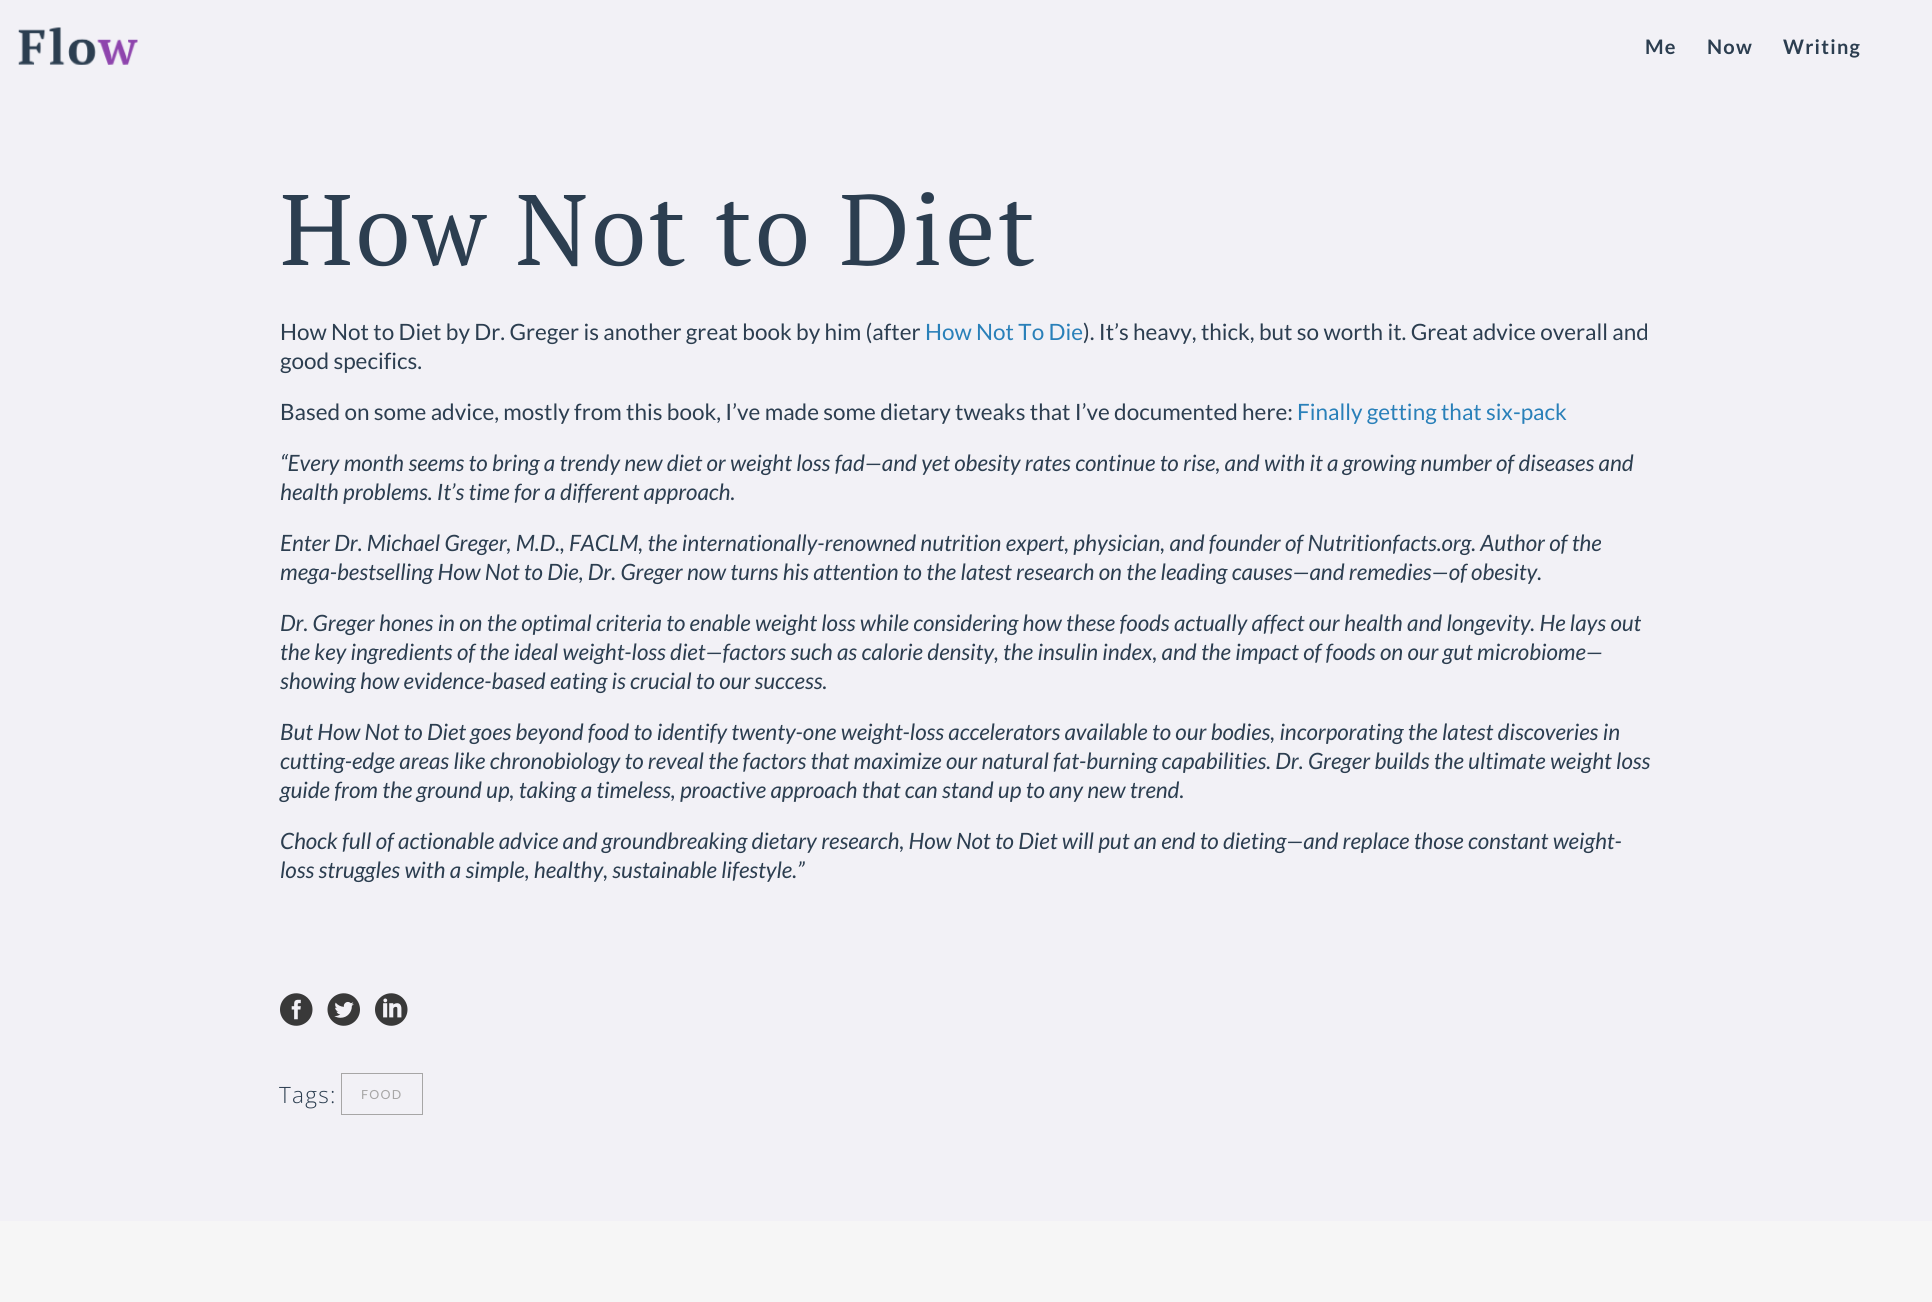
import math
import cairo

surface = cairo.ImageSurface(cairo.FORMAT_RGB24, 1932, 1302)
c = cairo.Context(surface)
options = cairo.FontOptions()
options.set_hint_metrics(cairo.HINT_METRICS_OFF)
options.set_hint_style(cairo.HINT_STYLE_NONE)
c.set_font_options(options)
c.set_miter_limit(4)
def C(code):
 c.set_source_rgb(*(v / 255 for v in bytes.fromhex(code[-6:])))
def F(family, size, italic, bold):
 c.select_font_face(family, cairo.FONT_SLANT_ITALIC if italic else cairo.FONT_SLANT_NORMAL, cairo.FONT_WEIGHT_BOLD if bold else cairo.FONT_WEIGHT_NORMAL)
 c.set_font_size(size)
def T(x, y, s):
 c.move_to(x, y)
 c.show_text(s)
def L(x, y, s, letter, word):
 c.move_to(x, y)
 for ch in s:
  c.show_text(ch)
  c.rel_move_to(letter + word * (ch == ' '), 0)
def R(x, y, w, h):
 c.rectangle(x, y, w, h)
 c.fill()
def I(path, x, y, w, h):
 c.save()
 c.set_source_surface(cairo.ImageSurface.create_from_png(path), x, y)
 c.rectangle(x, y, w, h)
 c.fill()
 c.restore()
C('f2f1f6')
c.paint()
I('1.png',18,27,120,38)
F('Lato',20,0,1)
C('2c3e50')
L(1645,54,'Me',1.25,0)
L(1707,54,'Now',1.25,0)
L(1783,54,'Writing',1.25,0)
F('PT Serif',100,0,0)
L(280,265,'How Not to Diet',2.5,0)
F('Lato',22.5,0,0)
T(280,340,'How Not to Diet by Dr. Greger is another great book by him (after')
C('2980b9')
T(925,340,'How Not To Die')
C('2c3e50')
T(1083,340,'). It’s heavy, thick, but so worth it. Great advice overall and')
T(280,369,'good specifics.')
T(280,420,'Based on some advice, mostly from this book, I’ve made some dietary tweaks that I’ve documented here:')
C('2980b9')
T(1297,420,'Finally getting that six-pack')
F('Lato',22.5,1,0)
C('2c3e50')
T(280,471,'“Every month seems to bring a trendy new diet or weight loss fad—and yet obesity rates continue to rise, and with it a growing number of diseases and')
T(280,500,'health problems. It’s time for a different approach.')
T(280,551,'Enter Dr. Michael Greger, M.D., FACLM, the internationally-renowned nutrition expert, physician, and founder of Nutritionfacts.org. Author of the')
T(280,580,'mega-bestselling How Not to Die, Dr. Greger now turns his attention to the latest research on the leading causes—and remedies—of obesity.')
T(280,631,'Dr. Greger hones in on the optimal criteria to enable weight loss while considering how these foods actually affect our health and longevity. He lays out')
T(280,660,'the key ingredients of the ideal weight-loss diet—factors such as calorie density, the insulin index, and the impact of foods on our gut microbiome—')
T(280,689,'showing how evidence-based eating is crucial to our success.')
T(280,740,'But How Not to Diet goes beyond food to identify twenty-one weight-loss accelerators available to our bodies, incorporating the latest discoveries in')
T(280,769,'cutting-edge areas like chronobiology to reveal the factors that maximize our natural fat-burning capabilities. Dr. Greger builds the ultimate weight loss')
T(280,798,'guide from the ground up, taking a timeless, proactive approach that can stand up to any new trend.')
T(280,849,'Chock full of actionable advice and groundbreaking dietary research, How Not to Diet will put an end to dieting—and replace those constant weight-')
T(280,878,'loss struggles with a simple, healthy, sustainable lifestyle.”')
I('2.png',280,993,33,33)
I('3.png',327,993,33,33)
I('4.png',375,993,33,33)
F('Open Sans Light',22.5,0,0)
L(279,1103,'Tags:',1.25,0)
c.rectangle(341.5,1073.5,81,41)
C('a7a6a6')
c.set_line_width(1)
c.stroke()
F('Lato',12.5,0,0)
L(361,1099,'FOOD',1.25,0)
C('f6f6f6')
R(0,1221,1932,81)
surface.write_to_png('o.png')
